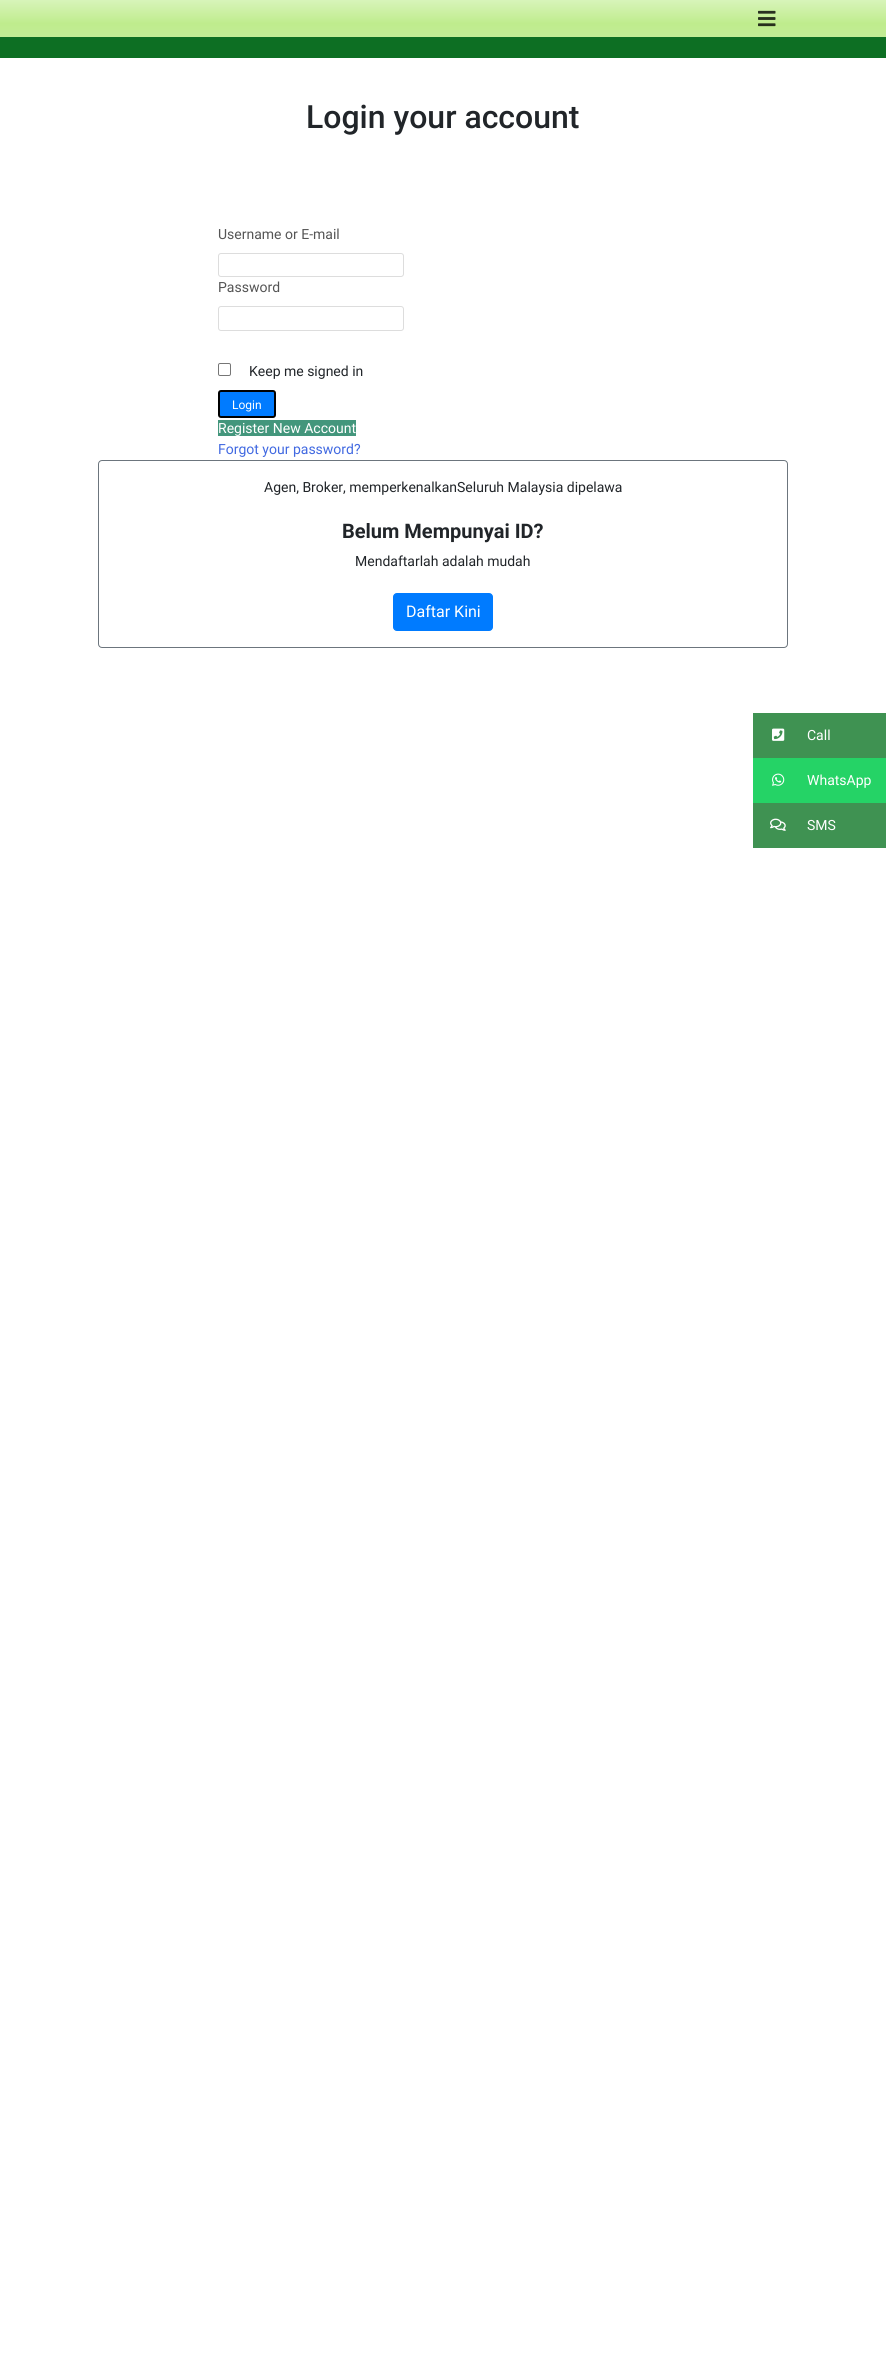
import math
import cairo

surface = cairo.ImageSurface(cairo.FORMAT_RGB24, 886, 2378)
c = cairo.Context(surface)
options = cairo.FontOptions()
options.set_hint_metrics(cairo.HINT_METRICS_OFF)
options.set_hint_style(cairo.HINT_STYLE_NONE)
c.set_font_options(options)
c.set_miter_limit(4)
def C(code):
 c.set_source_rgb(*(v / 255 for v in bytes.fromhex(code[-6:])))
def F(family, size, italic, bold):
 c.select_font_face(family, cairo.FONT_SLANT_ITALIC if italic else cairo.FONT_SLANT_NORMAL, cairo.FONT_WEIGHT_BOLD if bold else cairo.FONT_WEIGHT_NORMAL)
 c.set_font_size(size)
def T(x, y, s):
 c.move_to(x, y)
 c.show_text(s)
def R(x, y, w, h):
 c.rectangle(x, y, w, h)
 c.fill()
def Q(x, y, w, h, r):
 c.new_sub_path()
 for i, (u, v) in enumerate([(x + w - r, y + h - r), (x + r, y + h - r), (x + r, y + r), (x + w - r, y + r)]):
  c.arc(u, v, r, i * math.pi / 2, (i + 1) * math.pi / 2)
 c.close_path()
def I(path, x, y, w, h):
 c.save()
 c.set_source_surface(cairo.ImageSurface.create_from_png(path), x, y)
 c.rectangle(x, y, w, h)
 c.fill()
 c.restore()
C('ffffff')
c.paint()
C('0d6f23')
R(0,37,886,21)
gradient = cairo.LinearGradient(443,0,443,37)
gradient.add_color_stop_rgba(0,0.847,0.957,0.729,1)
gradient.add_color_stop_rgba(.64,0.749,0.925,0.553,1)
gradient.add_color_stop_rgba(1,0.761,0.925,0.588,1)
c.set_source(gradient)
R(0,0,886,37)
I('1.png',758,10,18,17)
F('Roboto Medium',32,0,0)
C('212529')
T(306,128,'Login your account')
F('Roboto',14,0,0)
C('555555')
T(218,239,'Username or E-mail')
Q(218.5,253.5,185,23,2.5)
C('dddddd')
c.set_line_width(1)
c.stroke()
C('555555')
T(218,292,'Password')
Q(218.5,306.5,185,24,2.5)
C('dddddd')
c.stroke()
Q(218.5,363.5,12,12,1.5)
C('767676')
c.stroke()
C('212529')
T(249,376,'Keep me signed in')
C('007bff')
Q(219,391,56,26,2)
c.fill_preserve()
C('000000')
c.set_line_width(2)
c.stroke()
F('Roboto',12,0,0)
C('ffffff')
T(232,409,'Login')
C('43967c')
R(218,420,138,16)
F('Roboto',14,0,0)
C('ffffff')
T(218,433,'Register New Account')
C('4169e1')
T(218,454,'Forgot your password?')
Q(98.5,460.5,689,187,3.5)
C('6c757d')
c.set_line_width(1)
c.stroke()
C('212529')
T(264,492,'Agen, Broker, memperkenalkanSeluruh Malaysia dipelawa')
F('Roboto',20,0,1)
T(342,538,'Belum Mempunyai ID?')
F('Roboto',14,0,0)
T(355,566,'Mendaftarlah adalah mudah')
C('007bff')
Q(393.5,593.5,99,37,3.5)
c.fill_preserve()
c.stroke()
F('Roboto',16,0,0)
C('ffffff')
T(406,617,'Daftar Kini')
C('3f9252')
R(753,713,133,45)
I('2.png',772,728,13,13)
F('Roboto',14,0,0)
C('ffffff')
T(807,740,'Call')
C('25d366')
R(753,758,133,45)
I('3.png',772,773,13,13)
C('ffffff')
T(807,785,'WhatsApp')
C('3f9252')
R(753,803,133,45)
I('4.png',770,818,16,13)
C('ffffff')
T(807,830,'SMS')
surface.write_to_png('o.png')
